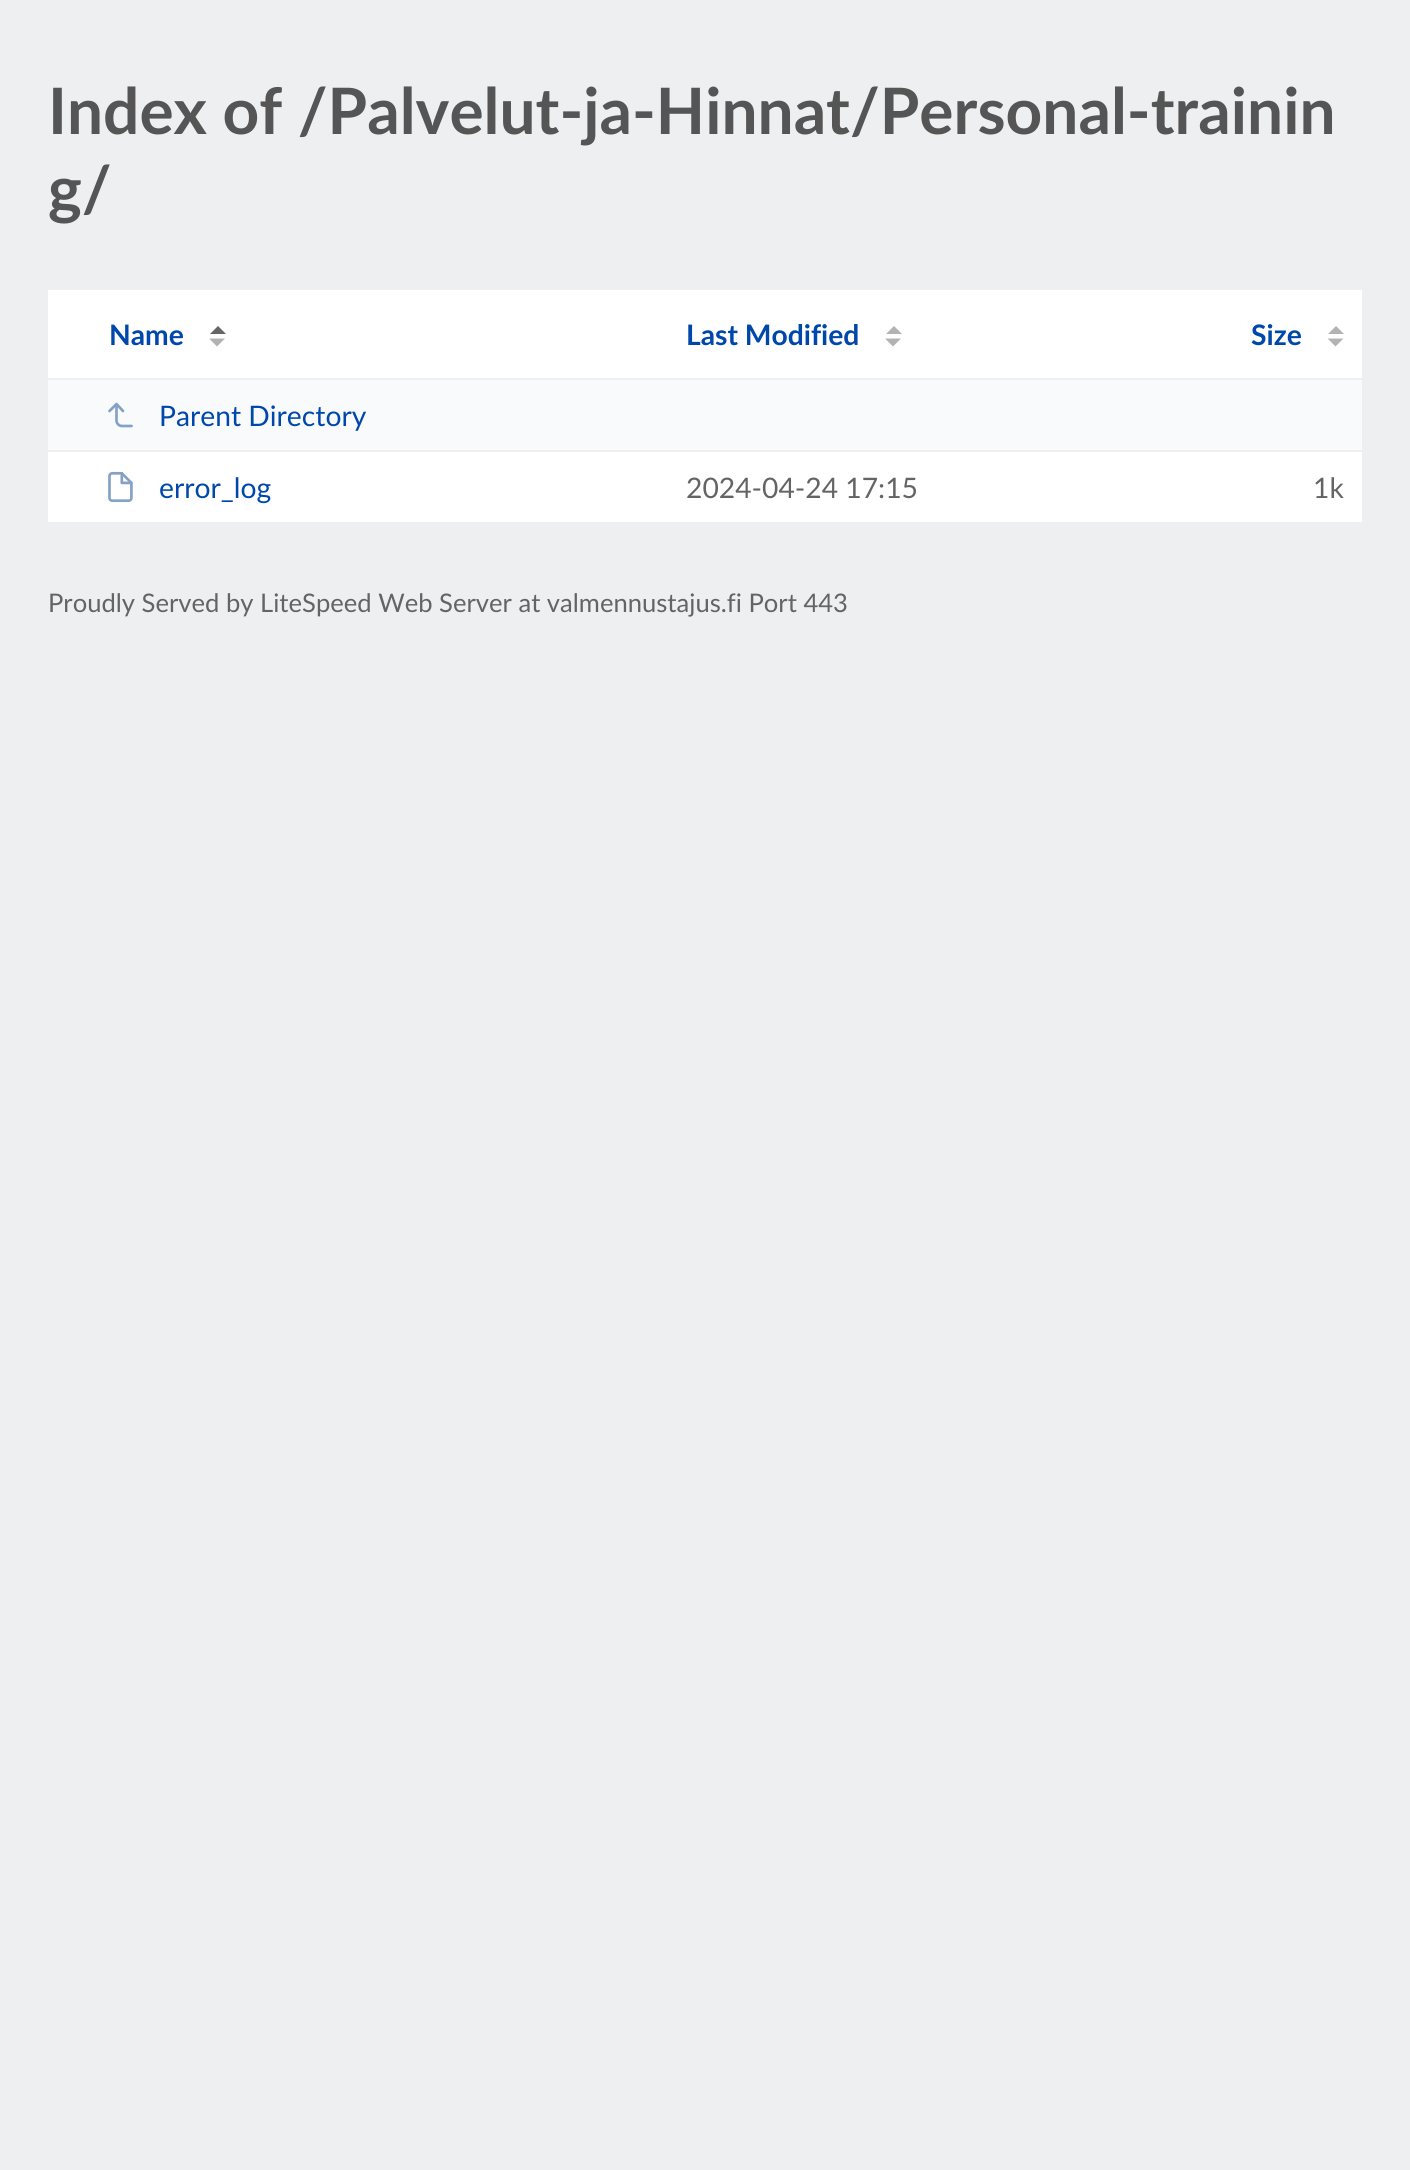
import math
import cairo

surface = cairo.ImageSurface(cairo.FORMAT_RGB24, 1410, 2170)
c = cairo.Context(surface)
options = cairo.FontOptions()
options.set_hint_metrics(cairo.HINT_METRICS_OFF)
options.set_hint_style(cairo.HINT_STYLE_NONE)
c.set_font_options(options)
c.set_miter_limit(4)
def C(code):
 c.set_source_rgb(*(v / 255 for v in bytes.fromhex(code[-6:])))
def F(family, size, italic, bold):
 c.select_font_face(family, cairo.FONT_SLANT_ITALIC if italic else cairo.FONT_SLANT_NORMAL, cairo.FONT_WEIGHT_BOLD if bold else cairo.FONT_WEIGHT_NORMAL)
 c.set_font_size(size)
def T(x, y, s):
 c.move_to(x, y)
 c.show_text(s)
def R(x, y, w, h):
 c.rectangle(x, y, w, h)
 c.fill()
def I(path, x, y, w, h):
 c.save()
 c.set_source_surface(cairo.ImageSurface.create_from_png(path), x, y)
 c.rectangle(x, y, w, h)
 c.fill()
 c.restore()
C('edeff0')
c.paint()
F('Lato',64,0,1)
C('555555')
T(48,134,'Index of /Palvelut-ja-Hinnat/Personal-trainin')
T(48,212,'g/')
C('ffffff')
R(48,290,1314,232)
F('Lato',28.25,0,1)
C('0047ab')
T(109,345,'Name')
C('666666')
c.new_path()
c.move_to(226,334)
c.line_to(210,334)
c.line_to(218,326)
c.close_path()
c.fill()
C('b3b3b3')
c.new_path()
c.move_to(209,338.5)
c.line_to(225,338.5)
c.line_to(217,346.5)
c.close_path()
c.fill()
C('0047ab')
T(686,345,'Last Modified')
C('b3b3b3')
c.new_path()
c.move_to(902,334)
c.line_to(886,334)
c.line_to(894,326)
c.close_path()
c.move_to(885,338.5)
c.line_to(901,338.5)
c.line_to(893,346.5)
c.close_path()
c.fill()
C('0047ab')
T(1251,345,'Size')
C('b3b3b3')
c.new_path()
c.move_to(1344,334)
c.line_to(1328,334)
c.line_to(1336,326)
c.close_path()
c.move_to(1327.5,338.5)
c.line_to(1343.5,338.5)
c.line_to(1335.5,346.5)
c.close_path()
c.fill()
C('f8fafb')
R(48,380,1314,70)
C('edeff0')
R(48,378,1314,2)
R(48,450,1314,2)
c.new_path()
c.move_to(123,411)
c.line_to(116.5,404)
c.line_to(109.5,411)
c.move_to(131.5,426)
c.line_to(122,426)
c.curve_to(119,426,116.5,423.5,116.5,420.5)
c.line_to(116.5,404)
C('86a1c6')
c.set_line_width(2.7)
c.set_line_cap(cairo.LINE_CAP_ROUND)
c.set_line_join(cairo.LINE_JOIN_ROUND)
c.stroke()
F('Lato',28.25,0,0)
C('0047ab')
T(159,426,'Parent Directory')
I('1.png',108,471,25,32)
T(159,498,'error_log')
C('646464')
T(686,498,'2024-04-24 17:15')
T(1313,498,'1k')
F('Lato',25.6,0,0)
T(48,612,'Proudly Served by LiteSpeed Web Server at valmennustajus.fi Port 443')
surface.write_to_png('o.png')
